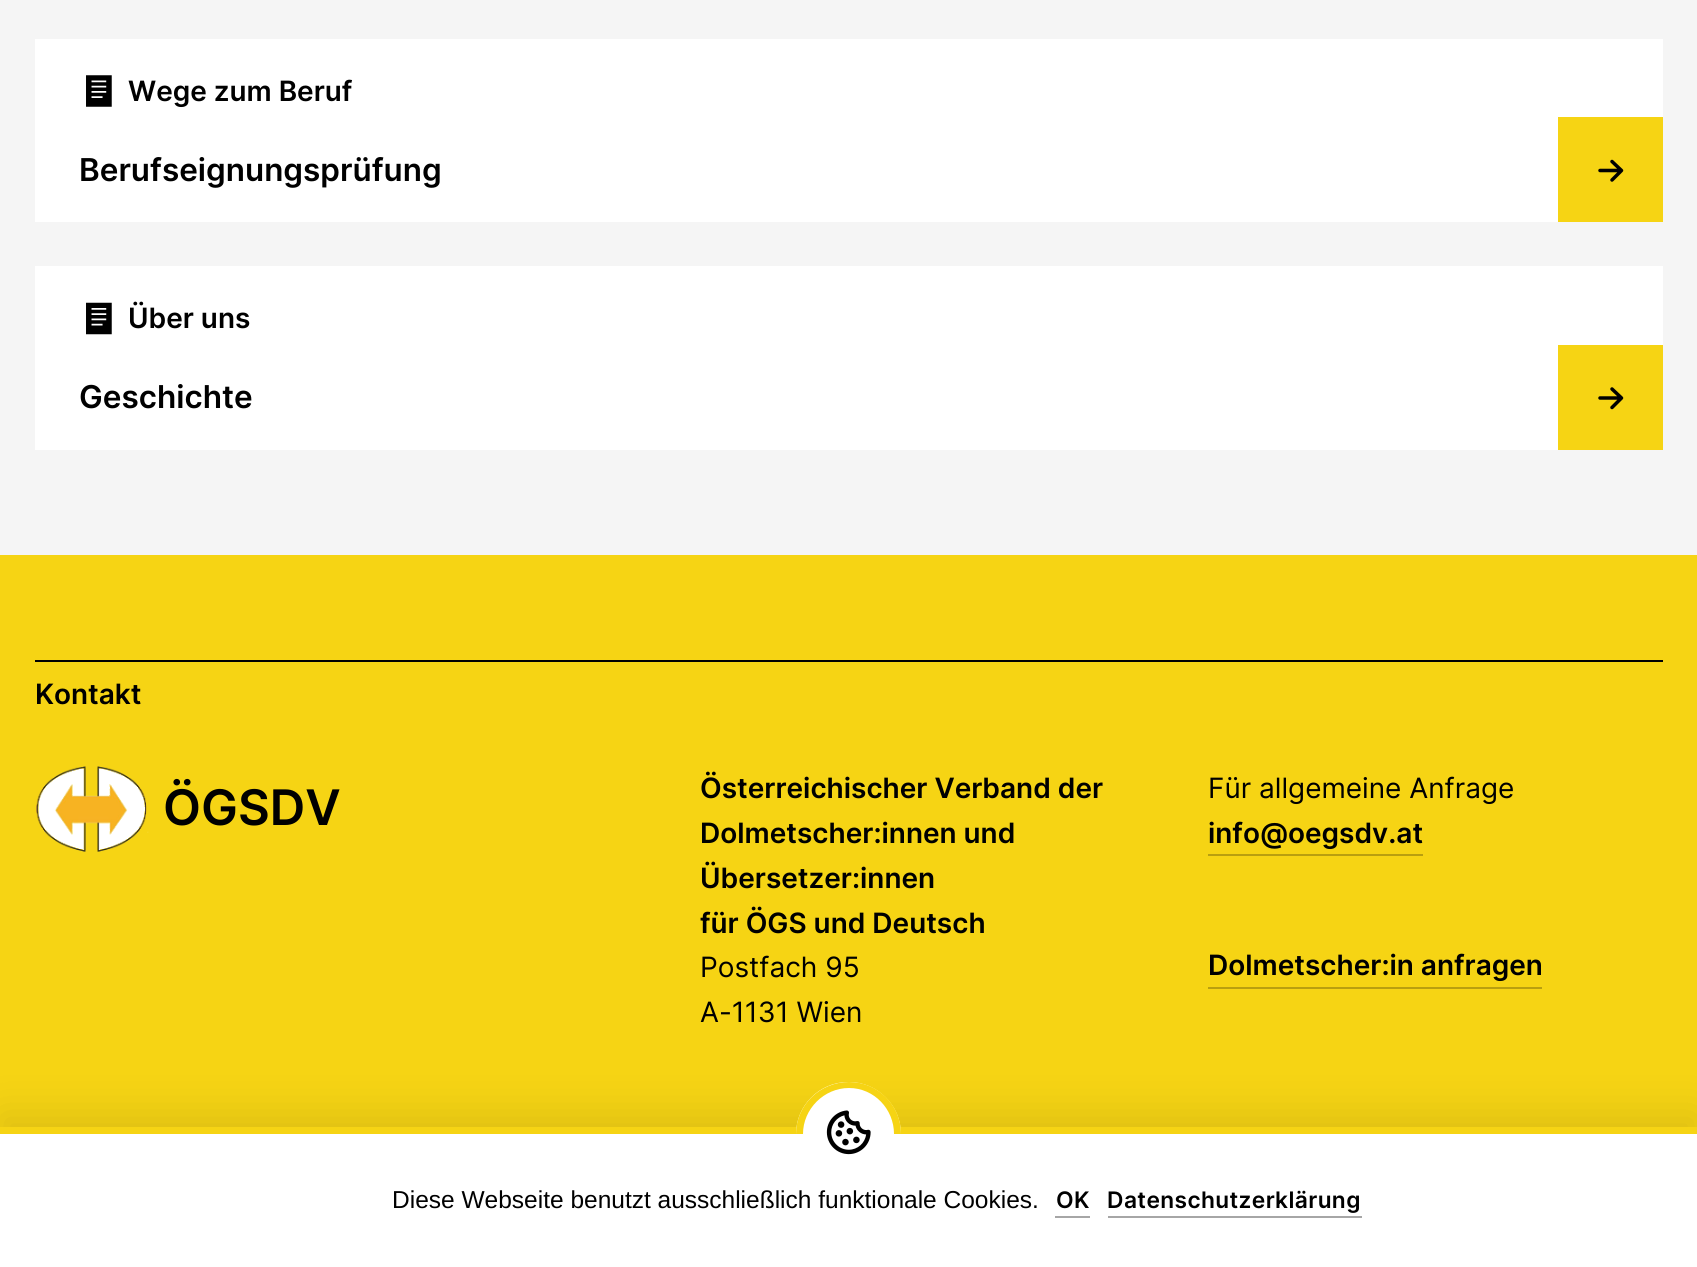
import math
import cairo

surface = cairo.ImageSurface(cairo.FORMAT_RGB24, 1697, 1267)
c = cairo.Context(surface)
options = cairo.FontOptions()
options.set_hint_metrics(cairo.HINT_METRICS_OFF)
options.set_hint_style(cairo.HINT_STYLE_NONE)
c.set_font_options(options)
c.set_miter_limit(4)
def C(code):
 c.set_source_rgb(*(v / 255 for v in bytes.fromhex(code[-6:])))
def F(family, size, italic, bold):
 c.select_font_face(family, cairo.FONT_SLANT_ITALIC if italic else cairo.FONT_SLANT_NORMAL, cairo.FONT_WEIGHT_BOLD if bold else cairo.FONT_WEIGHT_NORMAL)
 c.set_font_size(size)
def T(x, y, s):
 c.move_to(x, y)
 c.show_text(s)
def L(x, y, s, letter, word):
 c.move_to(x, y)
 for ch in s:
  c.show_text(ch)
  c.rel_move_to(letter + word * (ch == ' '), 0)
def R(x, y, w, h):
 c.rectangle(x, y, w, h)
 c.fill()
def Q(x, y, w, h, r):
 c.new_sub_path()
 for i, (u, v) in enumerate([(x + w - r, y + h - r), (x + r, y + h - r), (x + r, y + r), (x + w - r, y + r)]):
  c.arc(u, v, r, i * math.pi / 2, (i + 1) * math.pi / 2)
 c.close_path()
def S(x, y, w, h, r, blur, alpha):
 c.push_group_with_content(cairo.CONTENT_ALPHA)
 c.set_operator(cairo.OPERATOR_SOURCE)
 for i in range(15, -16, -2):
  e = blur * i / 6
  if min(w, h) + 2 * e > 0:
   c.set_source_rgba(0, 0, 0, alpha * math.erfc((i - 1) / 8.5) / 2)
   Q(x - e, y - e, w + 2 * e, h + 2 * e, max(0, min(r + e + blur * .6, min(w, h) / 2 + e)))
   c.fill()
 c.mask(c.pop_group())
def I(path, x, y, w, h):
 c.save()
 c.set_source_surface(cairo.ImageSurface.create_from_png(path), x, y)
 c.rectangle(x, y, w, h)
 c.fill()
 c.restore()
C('f5f5f5')
c.paint()
C('ffffff')
R(35,39,1628,183)
I('1.png',86,75,26,32)
F('Inter SemiBold',28,0,0)
C('000000')
T(128,101,'Wege zum Beruf')
F('Inter SemiBold',31.5,0,0)
T(79,181,'Berufseignungsprüfung')
C('f6d414')
R(1558,117,105,105)
c.new_path()
c.move_to(1621.5,170.5)
c.line_to(1600,170.5)
c.move_to(1612,180)
c.line_to(1621.5,170.5)
c.line_to(1612,161.5)
C('000000')
c.set_line_width(3.5)
c.set_line_cap(cairo.LINE_CAP_ROUND)
c.set_line_join(cairo.LINE_JOIN_ROUND)
c.stroke()
C('ffffff')
R(35,266,1628,184)
I('2.png',86,302,26,33)
F('Inter SemiBold',28,0,0)
C('000000')
T(128,328,'Über uns')
F('Inter SemiBold',31.5,0,0)
T(79,408,'Geschichte')
C('f6d414')
R(1558,345,105,105)
c.new_path()
c.move_to(1621.5,398)
c.line_to(1600,398)
c.move_to(1612,407.5)
c.line_to(1621.5,398)
c.line_to(1612,389)
C('000000')
c.stroke()
C('f6d414')
R(0,555,1697,572)
C('000000')
R(35,660,1628,2)
F('Inter SemiBold',28,0,0)
T(35,704,'Kontakt')
I('3.png',36,766,113,86)
F('Inter SemiBold',49,0,0)
T(163,825,'ÖGSDV')
F('Inter SemiBold',28,0,0)
T(700,798,'Österreichischer Verband der')
T(700,843,'Dolmetscher:innen und')
T(700,888,'Übersetzer:innen')
T(700,933,'für ÖGS und Deutsch')
F('Inter',28,0,0)
T(700,977,'Postfach 95')
T(700,1022,'A-1131 Wien')
T(1208,798,'Für allgemeine Anfrage')
F('Inter SemiBold',28,0,0)
T(1208,843,'info@oegsdv.at')
C('b99f0f')
R(1208,854,215,2)
C('000000')
T(1208,975,'Dolmetscher:in anfragen')
C('b99f0f')
R(1208,987,334,2)
C('000000')
S(0,1113,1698,140,0,21,.1)
C('ffffff')
R(0,1134,1697,133)
C('f6d414')
R(0,1127,1697,7)
C('ffffff')
c.new_path()
c.move_to(848,1082)
c.line_to(849,1082)
c.curve_to(877.5,1082,901,1105.5,901,1134)
c.line_to(796,1134)
c.curve_to(796,1105.5,819.5,1082,848,1082)
c.close_path()
c.fill()
C('f6d414')
c.set_fill_rule(cairo.FILL_RULE_EVEN_ODD)
c.new_path()
c.move_to(849,1082)
c.curve_to(878,1082,901,1105,901,1134)
c.line_to(796,1134)
c.curve_to(796,1105,820,1082,849,1082)
c.close_path()
c.move_to(849,1088)
c.curve_to(874,1088,894,1109,894,1134)
c.line_to(803,1134)
c.curve_to(803,1109,824,1088,849,1088)
c.close_path()
c.fill()
I('4.png',826,1110,45,45)
F('Liberation Sans',24.5,0,0)
C('000000')
T(392,1208,'Diese Webseite benutzt ausschließlich funktionale Cookies.')
F('Inter SemiBold',22.75,0,0)
L(1056,1208,'OK',.4,0)
C('a6a6a6')
R(1055,1216,35,2)
C('000000')
L(1107,1208,'Datenschutzerklärung',.4,0)
C('a6a6a6')
R(1108,1216,254,2)
surface.write_to_png('o.png')
